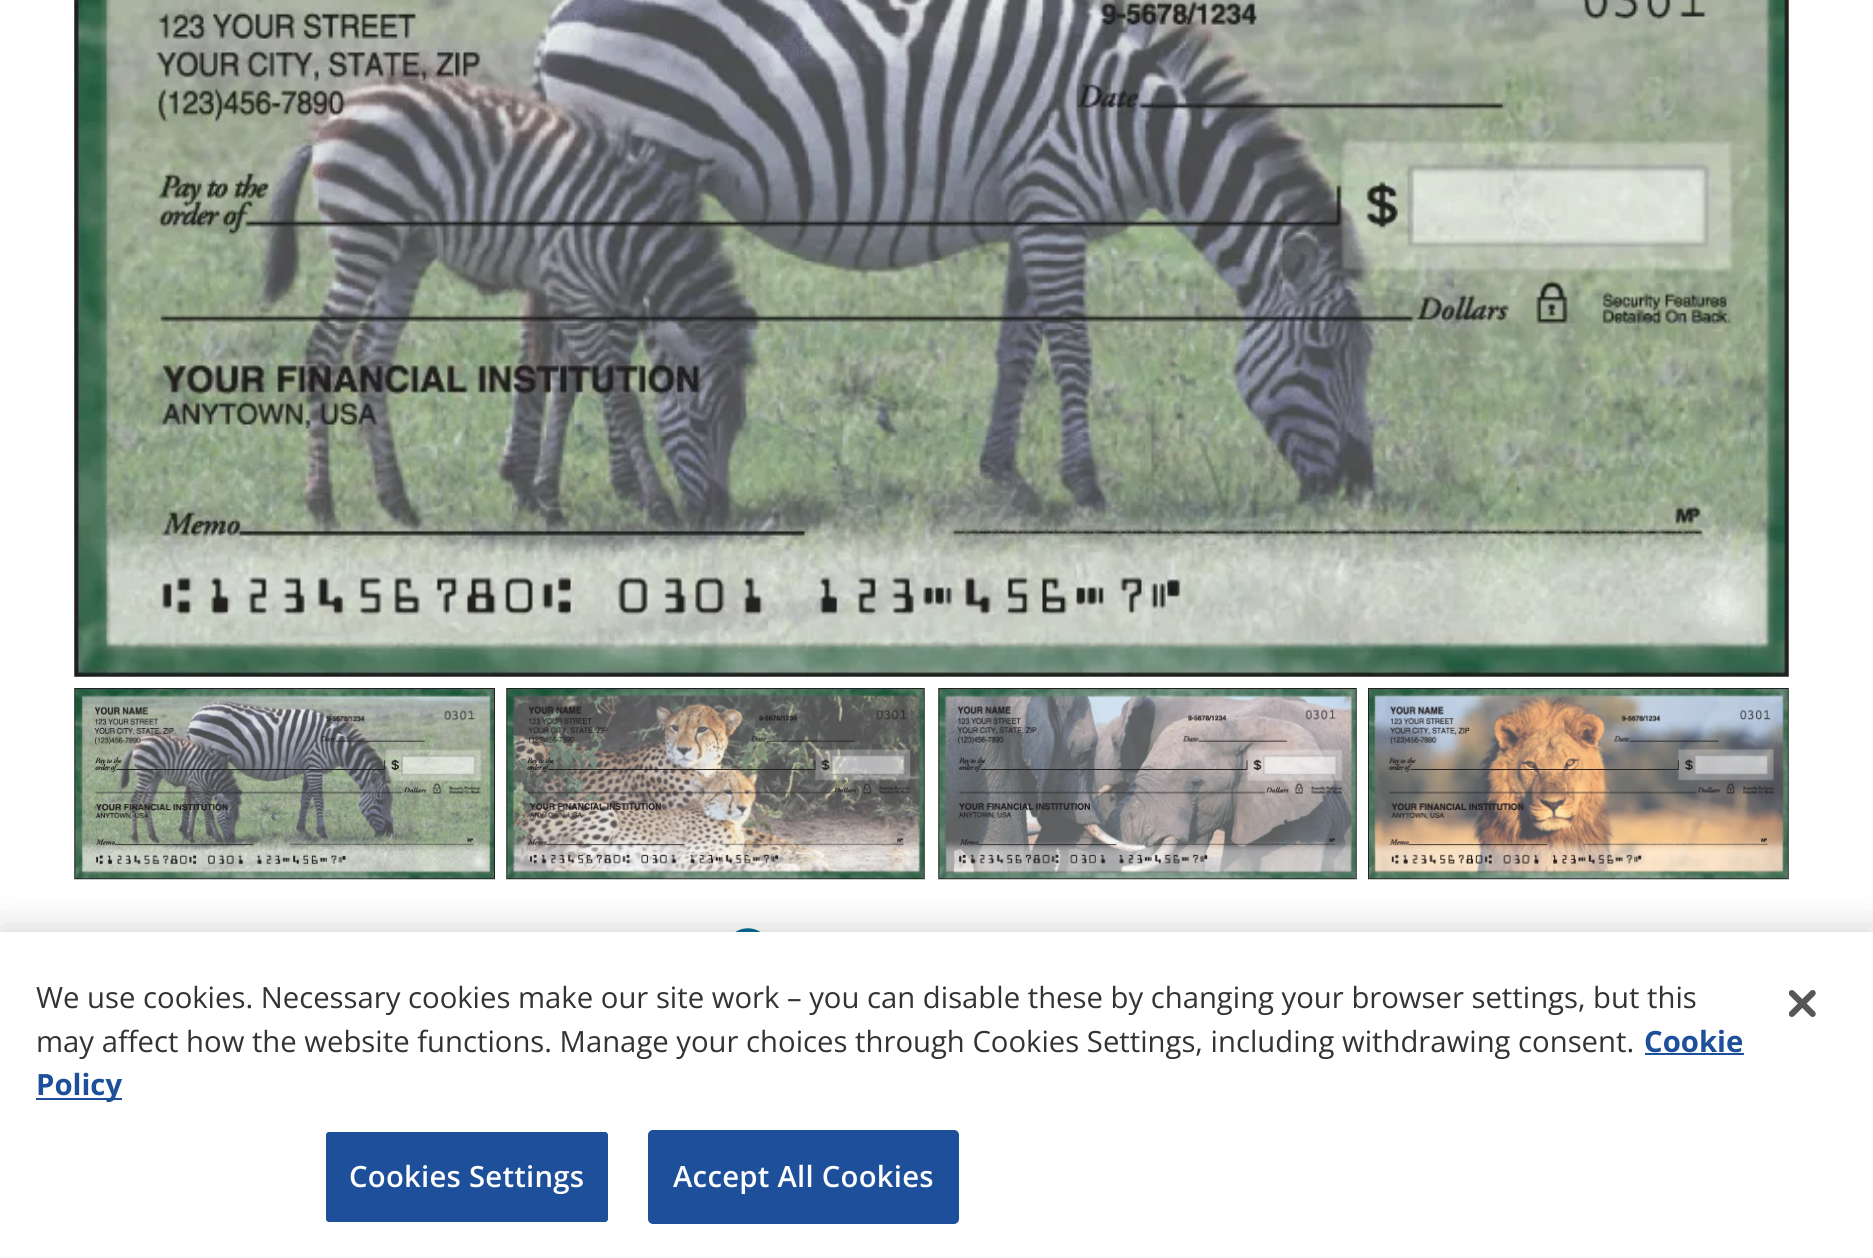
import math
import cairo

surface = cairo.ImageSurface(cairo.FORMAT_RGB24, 1873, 1258)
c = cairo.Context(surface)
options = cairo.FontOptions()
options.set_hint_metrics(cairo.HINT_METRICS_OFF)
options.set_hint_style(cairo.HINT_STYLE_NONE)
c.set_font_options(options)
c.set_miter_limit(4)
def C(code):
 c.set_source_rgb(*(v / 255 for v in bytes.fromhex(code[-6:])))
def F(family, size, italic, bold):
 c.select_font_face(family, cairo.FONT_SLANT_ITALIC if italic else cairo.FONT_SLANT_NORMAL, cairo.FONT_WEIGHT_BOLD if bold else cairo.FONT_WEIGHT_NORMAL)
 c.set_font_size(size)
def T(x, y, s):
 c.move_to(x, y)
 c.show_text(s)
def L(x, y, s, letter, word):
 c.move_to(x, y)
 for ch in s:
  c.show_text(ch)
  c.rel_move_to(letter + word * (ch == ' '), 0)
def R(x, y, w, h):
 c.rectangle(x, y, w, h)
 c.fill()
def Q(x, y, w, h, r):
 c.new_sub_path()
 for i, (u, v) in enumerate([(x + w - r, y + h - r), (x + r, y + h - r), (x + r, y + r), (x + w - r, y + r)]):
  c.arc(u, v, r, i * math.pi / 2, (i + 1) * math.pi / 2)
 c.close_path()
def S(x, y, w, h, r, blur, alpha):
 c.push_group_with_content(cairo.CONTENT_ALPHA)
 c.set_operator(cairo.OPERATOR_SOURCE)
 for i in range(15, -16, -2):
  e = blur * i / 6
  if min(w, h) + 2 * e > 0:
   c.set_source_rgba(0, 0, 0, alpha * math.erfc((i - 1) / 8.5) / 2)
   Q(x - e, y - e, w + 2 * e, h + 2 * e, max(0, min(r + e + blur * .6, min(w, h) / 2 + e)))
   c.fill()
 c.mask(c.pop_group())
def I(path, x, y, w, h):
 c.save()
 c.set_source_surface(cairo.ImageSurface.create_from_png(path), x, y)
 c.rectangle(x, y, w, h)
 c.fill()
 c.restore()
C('ffffff')
c.paint()
I('1.png',74,0,1715,677)
I('2.png',74,688,421,192)
I('3.png',506,688,419,192)
I('4.png',938,688,419,192)
I('5.png',1368,688,421,192)
I('6.png',735,928,26,4)
C('000000')
S(0,932,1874,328,0,20,.2)
C('ffffff')
R(0,932,1873,326)
F('Open Sans',29.27,0,0)
C('333333')
T(36,1008,'We use cookies. Necessary cookies make our site work – you can disable these by changing your browser settings, but this')
T(36,1052,'may affect how the website functions. Manage your choices through Cookies Settings, including withdrawing consent.')
F('Open Sans',29.27,0,1)
C('1d4f9a')
T(1644,1052,'Cookie')
R(1645,1053,99,2)
R(36,1098,86,2)
T(36,1095,'Policy')
Q(325,1131,284,92,4)
c.fill_preserve()
C('ffffff')
c.stroke()
F('Open Sans SemiBold',29.27,0,0)
L(349,1187,'Cookies Settings',.25,0)
C('1d4f9a')
Q(649,1131,309,92,4)
c.fill_preserve()
c.stroke()
C('ffffff')
L(673,1187,'Accept All Cookies',.25,0)
I('7.png',1789,990,27,27)
surface.write_to_png('o.png')
